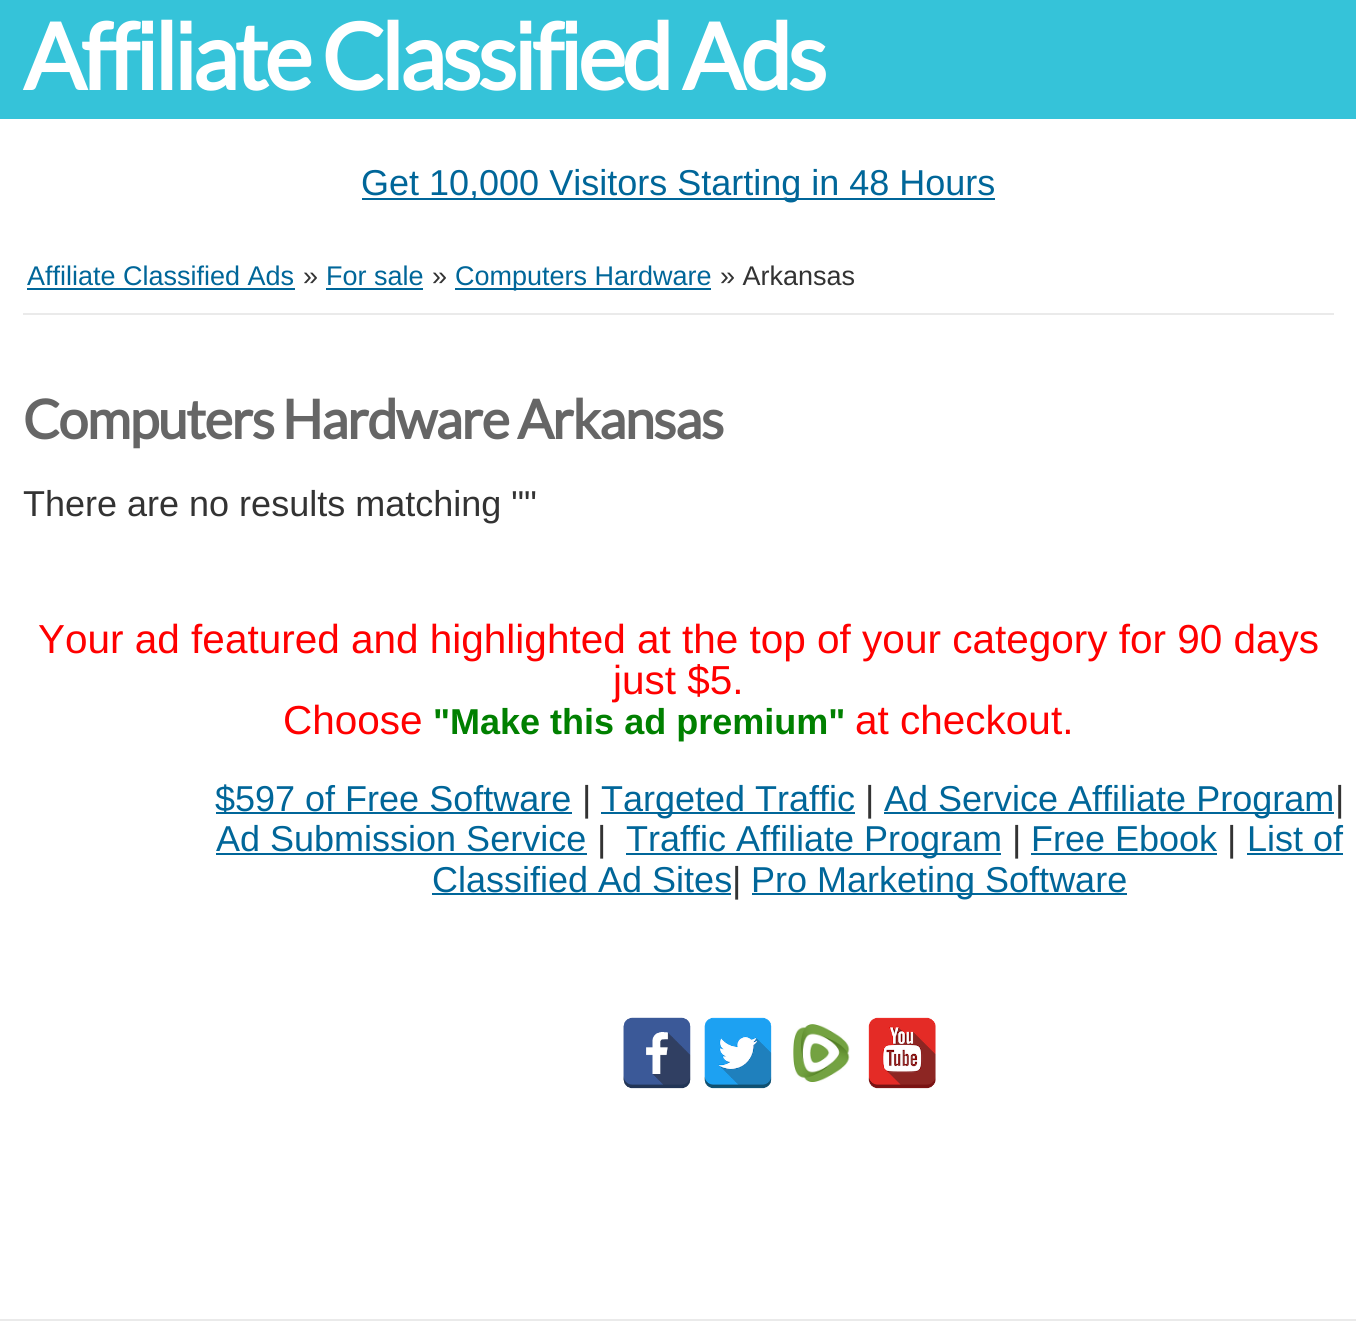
import math
import cairo

surface = cairo.ImageSurface(cairo.FORMAT_RGB24, 1356, 1326)
c = cairo.Context(surface)
options = cairo.FontOptions()
options.set_hint_metrics(cairo.HINT_METRICS_OFF)
options.set_hint_style(cairo.HINT_STYLE_NONE)
c.set_font_options(options)
c.set_miter_limit(4)
def C(code):
 c.set_source_rgb(*(v / 255 for v in bytes.fromhex(code[-6:])))
def F(family, size, italic, bold):
 c.select_font_face(family, cairo.FONT_SLANT_ITALIC if italic else cairo.FONT_SLANT_NORMAL, cairo.FONT_WEIGHT_BOLD if bold else cairo.FONT_WEIGHT_NORMAL)
 c.set_font_size(size)
def T(x, y, s):
 c.move_to(x, y)
 c.show_text(s)
def L(x, y, s, letter, word):
 c.move_to(x, y)
 for ch in s:
  c.show_text(ch)
  c.rel_move_to(letter + word * (ch == ' '), 0)
def R(x, y, w, h):
 c.rectangle(x, y, w, h)
 c.fill()
def I(path, x, y, w, h):
 c.save()
 c.set_source_surface(cairo.ImageSurface.create_from_png(path), x, y)
 c.rectangle(x, y, w, h)
 c.fill()
 c.restore()
C('ffffff')
c.paint()
C('35c3d9')
R(0,0,1356,119)
F('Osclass',91.75,0,1)
C('ffffff')
L(23,90,'Affiliate Classified Ads',-4.25,0)
C('006699')
R(362,198,633,2)
F('Liberation Sans',36,0,0)
T(361,195,'Get 10,000 Visitors Starting in 48 Hours')
C('eaeaea')
R(23,313,1311,2)
F('Liberation Sans',27,0,0)
C('006699')
T(27,285,'Affiliate Classified Ads')
R(27,288,268,2)
C('333333')
T(303,285,'»')
C('006699')
T(326,285,'For sale')
R(326,288,97,2)
C('333333')
T(432,285,'»')
C('006699')
R(455,288,256,2)
T(455,285,'Computers Hardware')
C('333333')
T(720,285,'» Arkansas')
F('Osclass',54,0,1)
C('666666')
L(23,439,'Computers Hardware Arkansas',-1.6,0)
F('Liberation Sans',36,0,0)
C('333333')
T(23,516,'There are no results matching ""')
F('Liberation Sans',40.5,0,0)
C('ff0000')
T(38,653,'Your ad featured and highlighted at the top of your category for 90 days')
T(613,694,'just $5.')
T(283,734,'Choose')
F('Liberation Sans',36,0,1)
C('008000')
T(433,734,'"Make this ad premium"')
F('Liberation Sans',40.5,0,0)
C('ff0000')
T(855,734,'at checkout.')
C('006699')
R(216,812,356,2)
F('Liberation Sans',36,0,0)
T(215,811,'$597 of Free Software')
C('333333')
T(582,811,'|')
C('006699')
R(601,812,254,2)
T(601,811,'Targeted Traffic')
C('333333')
T(865,811,'|')
C('006699')
R(884,812,450,2)
T(884,811,'Ad Service Affiliate Program')
C('333333')
T(1335,811,'|')
C('006699')
T(216,851,'Ad Submission Service')
R(216,853,371,2)
C('333333')
T(597,851,'|')
C('006699')
R(626,853,375,2)
T(626,851,'Traffic Affiliate Program')
C('333333')
T(1012,851,'|')
C('006699')
T(1031,851,'Free Ebook')
R(1031,853,186,2)
C('333333')
T(1227,851,'|')
C('006699')
T(1247,851,'List of')
R(1247,853,96,2)
T(432,892,'Classified Ad Sites')
R(432,893,299,2)
C('333333')
T(732,892,'|')
C('006699')
R(752,893,375,2)
T(751,892,'Pro Marketing Software')
I('1.png',623,1017,68,72)
I('2.png',704,1017,68,72)
I('3.png',792,1023,58,59)
I('4.png',868,1017,68,72)
C('eaeaea')
R(0,1319,1356,2)
surface.write_to_png('o.png')
